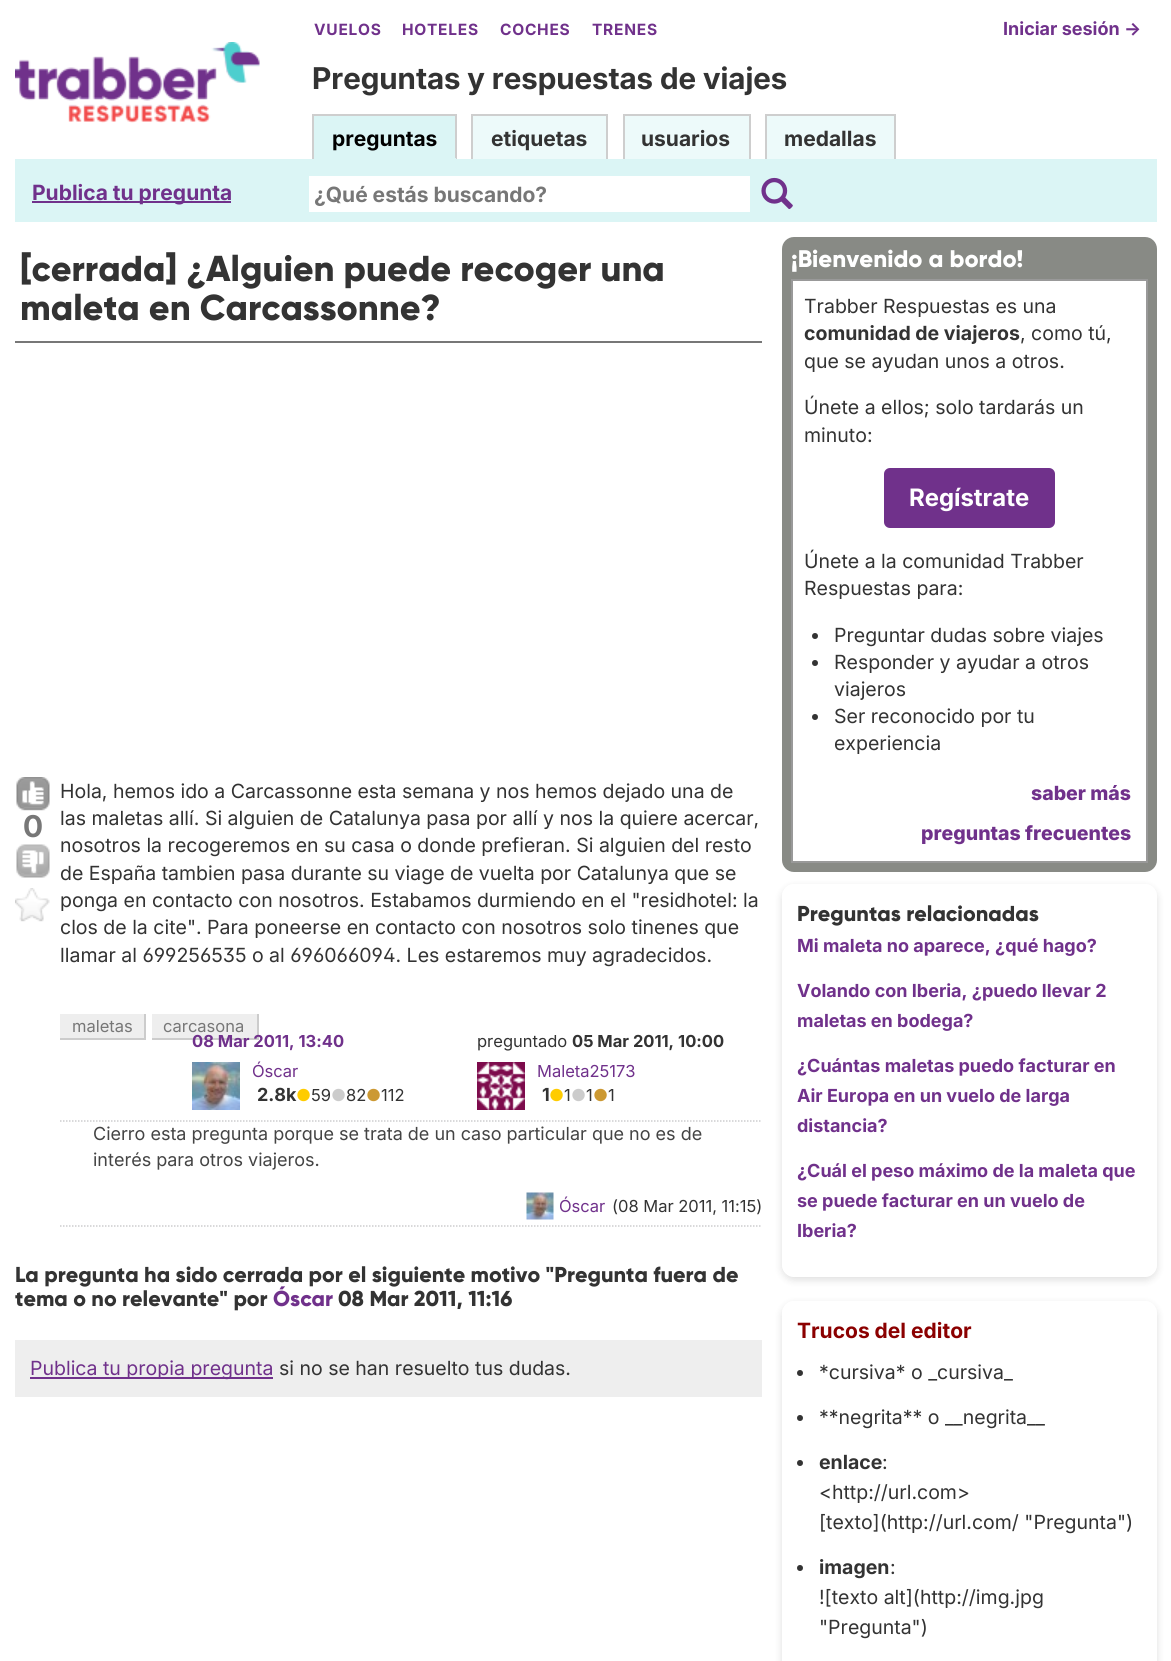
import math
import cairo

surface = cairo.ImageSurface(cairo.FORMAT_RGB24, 1171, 1661)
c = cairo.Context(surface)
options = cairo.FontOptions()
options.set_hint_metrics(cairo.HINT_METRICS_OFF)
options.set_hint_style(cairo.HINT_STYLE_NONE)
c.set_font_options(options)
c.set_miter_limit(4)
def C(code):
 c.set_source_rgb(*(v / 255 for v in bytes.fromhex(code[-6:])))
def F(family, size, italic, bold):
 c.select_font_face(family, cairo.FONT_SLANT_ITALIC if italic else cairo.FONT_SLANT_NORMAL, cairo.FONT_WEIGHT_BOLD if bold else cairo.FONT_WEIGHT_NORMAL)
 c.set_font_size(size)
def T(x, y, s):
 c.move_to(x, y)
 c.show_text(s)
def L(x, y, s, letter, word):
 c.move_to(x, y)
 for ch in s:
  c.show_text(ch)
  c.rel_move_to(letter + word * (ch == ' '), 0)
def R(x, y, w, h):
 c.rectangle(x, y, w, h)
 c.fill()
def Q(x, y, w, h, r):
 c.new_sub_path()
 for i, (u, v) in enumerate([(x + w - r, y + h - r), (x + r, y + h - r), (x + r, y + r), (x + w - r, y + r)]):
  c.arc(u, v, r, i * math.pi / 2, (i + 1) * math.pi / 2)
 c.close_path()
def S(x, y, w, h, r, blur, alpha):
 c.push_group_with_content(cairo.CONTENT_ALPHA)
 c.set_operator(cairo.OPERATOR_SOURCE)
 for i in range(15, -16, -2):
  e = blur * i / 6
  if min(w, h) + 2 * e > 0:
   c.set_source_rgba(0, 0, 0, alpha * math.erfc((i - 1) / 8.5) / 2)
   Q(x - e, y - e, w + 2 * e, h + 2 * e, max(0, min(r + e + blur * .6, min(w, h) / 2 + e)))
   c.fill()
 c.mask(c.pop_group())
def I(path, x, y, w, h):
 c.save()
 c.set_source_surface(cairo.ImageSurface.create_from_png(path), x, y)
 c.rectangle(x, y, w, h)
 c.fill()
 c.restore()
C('ffffff')
c.paint()
F('Inter',15.5,0,1)
C('70318b')
L(314,35,'VUELOS',.75,0)
L(402,35,'HOTELES',.75,0)
L(500,35,'COCHES',.75,0)
L(592,35,'TRENES',.75,0)
F('Inter',18,0,1)
T(1003,35,'Iniciar sesión →')
I('1.png',15,42,245,81)
F('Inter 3',30,0,1)
C('333333')
T(312,89,'Preguntas y respuestas de viajes')
C('dbf5f5')
R(314,116,141,42)
C('cecece')
R(312,114,144,2)
R(455,114,2,45)
C('dbf5f5')
R(312,158,144,1)
C('cecece')
R(312,114,2,45)
F('Inter',21,0,1)
C('000000')
T(332,146,'preguntas')
C('edfafa')
R(473,116,133,43)
C('cecece')
R(471,114,137,2)
R(606,114,2,45)
R(471,114,2,45)
C('333333')
T(491,146,'etiquetas')
C('edfafa')
R(625,116,124,43)
C('cecece')
R(623,114,127,2)
R(749,114,2,45)
R(623,114,2,45)
C('333333')
T(641,146,'usuarios')
C('edfafa')
R(767,116,127,43)
C('cecece')
R(765,114,131,2)
R(894,114,2,45)
R(765,114,2,45)
C('333333')
T(784,146,'medallas')
C('dbf5f5')
R(15,159,1142,63)
C('70318b')
R(32,201,199,2)
T(32,200,'Publica tu pregunta')
C('ffffff')
R(309,176,441,36)
C('777777')
T(314,202,'¿Qué estás buscando?')
I('2.png',761,177,32,33)
R(15,341,747,2)
F('Gilroy ExtraBold',36,0,0)
C('333333')
T(20,281,'[cerrada] ¿Alguien puede recoger una')
T(20,320,'maleta en Carcassonne?')
I('3.png',16,777,34,34)
F('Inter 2',30,0,1)
C('777777')
T(23,837,'0')
I('4.png',16,844,34,34)
I('5.png',15,888,35,34)
F('Inter',19.5,0,0)
C('333333')
T(60,798,'Hola, hemos ido a Carcassonne esta semana y nos hemos dejado una de')
T(60,825,'las maletas allí. Si alguien de Catalunya pasa por allí y nos la quiere acercar,')
T(60,852,'nosotros la recogeremos en su casa o donde prefieran. Si alguien del resto')
T(60,880,'de España tambien pasa durante su viage de vuelta por Catalunya que se')
T(60,907,'ponga en contacto con nosotros. Estabamos durmiendo en el "residhotel: la')
T(60,934,'clos de la cite". Para poneerse en contacto con nosotros solo tinenes que')
F('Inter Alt',19.5,0,0)
T(60,962,'llamar al 699256535 o al 696066094. Les estaremos muy agradecidos.')
C('eeeeee')
R(60,1014,84,24)
F('Inter',16.5,0,0)
C('777777')
T(72,1032,'maletas')
C('cccccc')
R(144,1014,2,26)
R(60,1038,86,2)
C('eeeeee')
R(152,1014,105,24)
C('777777')
T(163,1032,'carcasona')
C('cccccc')
R(257,1014,2,26)
R(152,1038,106,2)
F('Inter',16.5,0,1)
C('70318b')
T(192,1047,'08 Mar 2011, 13:40')
I('6.png',192,1062,48,48)
F('Inter',16.5,0,0)
T(252,1077,'Óscar')
F('Inter',18,0,1)
C('333333')
T(257,1101,'2.8k')
F('Inter',16.5,0,0)
C('ffcc00')
T(296,1101,'●')
C('333333')
T(311,1101,'59')
C('cccccc')
T(331,1101,'●')
C('333333')
T(346,1101,'82')
C('cc9933')
T(366,1101,'●')
C('333333')
T(381,1101,'112')
T(477,1047,'preguntado')
F('Inter',16.5,0,1)
T(572,1047,'05 Mar 2011, 10:00')
I('7.png',477,1062,48,48)
F('Inter',16.5,0,0)
C('70318b')
T(537,1077,'Maleta25173')
F('Inter',18,0,1)
C('333333')
T(542,1101,'1')
F('Inter',16.5,0,0)
C('ffcc00')
T(549,1101,'●')
C('333333')
T(564,1101,'1')
C('cccccc')
T(571,1101,'●')
C('333333')
T(586,1101,'1')
C('cc9933')
T(593,1101,'●')
C('333333')
T(608,1101,'1')
c.new_path()
c.move_to(60,1121)
c.line_to(762,1121)
C('ccccce')
c.set_line_width(1.5)
c.set_dash([1.5,1.5])
c.stroke()
F('Inter',18,0,0)
C('444444')
T(93,1140,'Cierro esta pregunta porque se trata de un caso particular que no es de')
T(93,1166,'interés para otros viajeros.')
I('8.png',526,1192,28,28)
F('Inter',16.5,0,0)
C('70318b')
T(559,1212,'Óscar')
C('333333')
T(612,1212,'(08 Mar 2011, 11:15)')
c.new_path()
c.move_to(60,1226)
c.line_to(762,1226)
C('ccccce')
c.stroke()
F('Gilroy ExtraBold',21.6,0,0)
C('333333')
T(15,1282,'La pregunta ha sido cerrada por el siguiente motivo "Pregunta fuera de')
T(15,1306,'tema o no relevante" por')
C('70318b')
T(273,1306,'Óscar')
C('333333')
T(338,1306,'08 Mar 2011, 11:16')
C('eeeeee')
R(15,1340,747,57)
C('70318b')
R(30,1377,243,2)
F('Inter',19.5,0,0)
T(30,1375,'Publica tu propia pregunta')
C('333333')
T(279,1375,'si no se han resuelto tus dudas.')
C('888a85')
Q(782,237,375,635,12)
c.fill()
F('Gilroy ExtraBold',24,0,0)
C('ffffff')
T(791,267,'¡Bienvenido a bordo!')
c.rectangle(792,280,355,582)
c.fill_preserve()
C('999999')
c.set_line_width(2)
c.set_dash([])
c.stroke()
F('Inter',19.5,0,0)
C('333333')
T(804,313,'Trabber Respuestas es una')
F('Inter',19.5,0,1)
T(804,340,'comunidad de viajeros')
F('Inter',19.5,0,0)
T(1020,340,', como tú,')
T(804,368,'que se ayudan unos a otros.')
T(804,414,'Únete a ellos; solo tardarás un')
T(804,442,'minuto:')
C('70318b')
Q(884,468,171,60,6)
c.fill()
F('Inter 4',24,0,1)
C('ffffff')
T(909,506,'Regístrate')
F('Inter',19.5,0,0)
C('333333')
T(804,568,'Únete a la comunidad Trabber')
T(804,595,'Respuestas para:')
c.new_path()
c.arc(815,636,3,0,2 * math.pi)
c.fill()
T(834,642,'Preguntar dudas sobre viajes')
c.new_path()
c.arc(815,663,3,0,2 * math.pi)
c.fill()
T(834,669,'Responder y ayudar a otros')
T(834,696,'viajeros')
c.new_path()
c.arc(815,717,3,0,2 * math.pi)
c.fill()
T(834,723,'Ser reconocido por tu')
T(834,750,'experiencia')
F('Inter ExtraBold',19.5,0,0)
C('70318b')
T(1031,800,'saber más')
T(921,840,'preguntas frecuentes')
c.save()
c.set_fill_rule(cairo.FILL_RULE_EVEN_ODD)
c.new_path()
c.move_to(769,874)
c.line_to(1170,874)
c.line_to(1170,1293)
c.line_to(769,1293)
c.close_path()
c.move_to(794,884)
c.line_to(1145,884)
c.curve_to(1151.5,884,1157,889.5,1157,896)
c.line_to(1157,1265)
c.curve_to(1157,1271.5,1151.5,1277,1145,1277)
c.line_to(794,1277)
c.curve_to(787.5,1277,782,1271.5,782,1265)
c.line_to(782,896)
c.curve_to(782,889.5,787.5,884,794,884)
c.close_path()
c.clip()
C('000000')
S(782,887,375,393,12,4,.13)
c.restore()
F('Gilroy ExtraBold',21.6,0,0)
C('333333')
T(797,921,'Preguntas relacionadas')
F('Inter',18,0,1)
C('70318b')
T(797,952,'Mi maleta no aparece, ¿qué hago?')
T(797,997,'Volando con Iberia, ¿puedo llevar 2')
T(797,1027,'maletas en bodega?')
T(797,1072,'¿Cuántas maletas puedo facturar en')
T(797,1102,'Air Europa en un vuelo de larga')
T(797,1132,'distancia?')
T(797,1177,'¿Cuál el peso máximo de la maleta que')
T(797,1207,'se puede facturar en un vuelo de')
T(797,1237,'Iberia?')
c.save()
c.set_fill_rule(cairo.FILL_RULE_EVEN_ODD)
c.new_path()
c.move_to(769,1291)
c.line_to(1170,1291)
c.line_to(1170,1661)
c.line_to(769,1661)
c.close_path()
c.move_to(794,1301)
c.line_to(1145,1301)
c.curve_to(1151.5,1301,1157,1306.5,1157,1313)
c.line_to(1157,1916)
c.curve_to(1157,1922.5,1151.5,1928,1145,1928)
c.line_to(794,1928)
c.curve_to(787.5,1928,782,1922.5,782,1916)
c.line_to(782,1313)
c.curve_to(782,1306.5,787.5,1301,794,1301)
c.close_path()
c.clip()
C('000000')
S(782,1304,375,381,12,4,.13)
c.restore()
F('Inter',21,0,1)
C('8b0000')
T(797,1338,'Trucos del editor')
C('333333')
c.new_path()
c.arc(800,1373,3,0,2 * math.pi)
c.fill()
F('Inter',19.5,0,0)
T(819,1379,'*cursiva* o _cursiva_')
c.new_path()
c.arc(800,1418,3,0,2 * math.pi)
c.fill()
T(819,1424,'**negrita** o __negrita__')
c.new_path()
c.arc(800,1463,3,0,2 * math.pi)
c.fill()
F('Inter',19.5,0,1)
T(819,1469,'enlace')
F('Inter',19.5,0,0)
T(882,1469,':')
T(819,1499,'<http://url.com>')
T(819,1529,'[texto](http://url.com/ "Pregunta")')
c.new_path()
c.arc(800,1568,3,0,2 * math.pi)
c.fill()
F('Inter',19.5,0,1)
T(819,1574,'imagen')
F('Inter',19.5,0,0)
T(890,1574,':')
T(819,1604,'![texto alt](http://img.jpg')
T(819,1634,'"Pregunta")')
surface.write_to_png('o.png')
